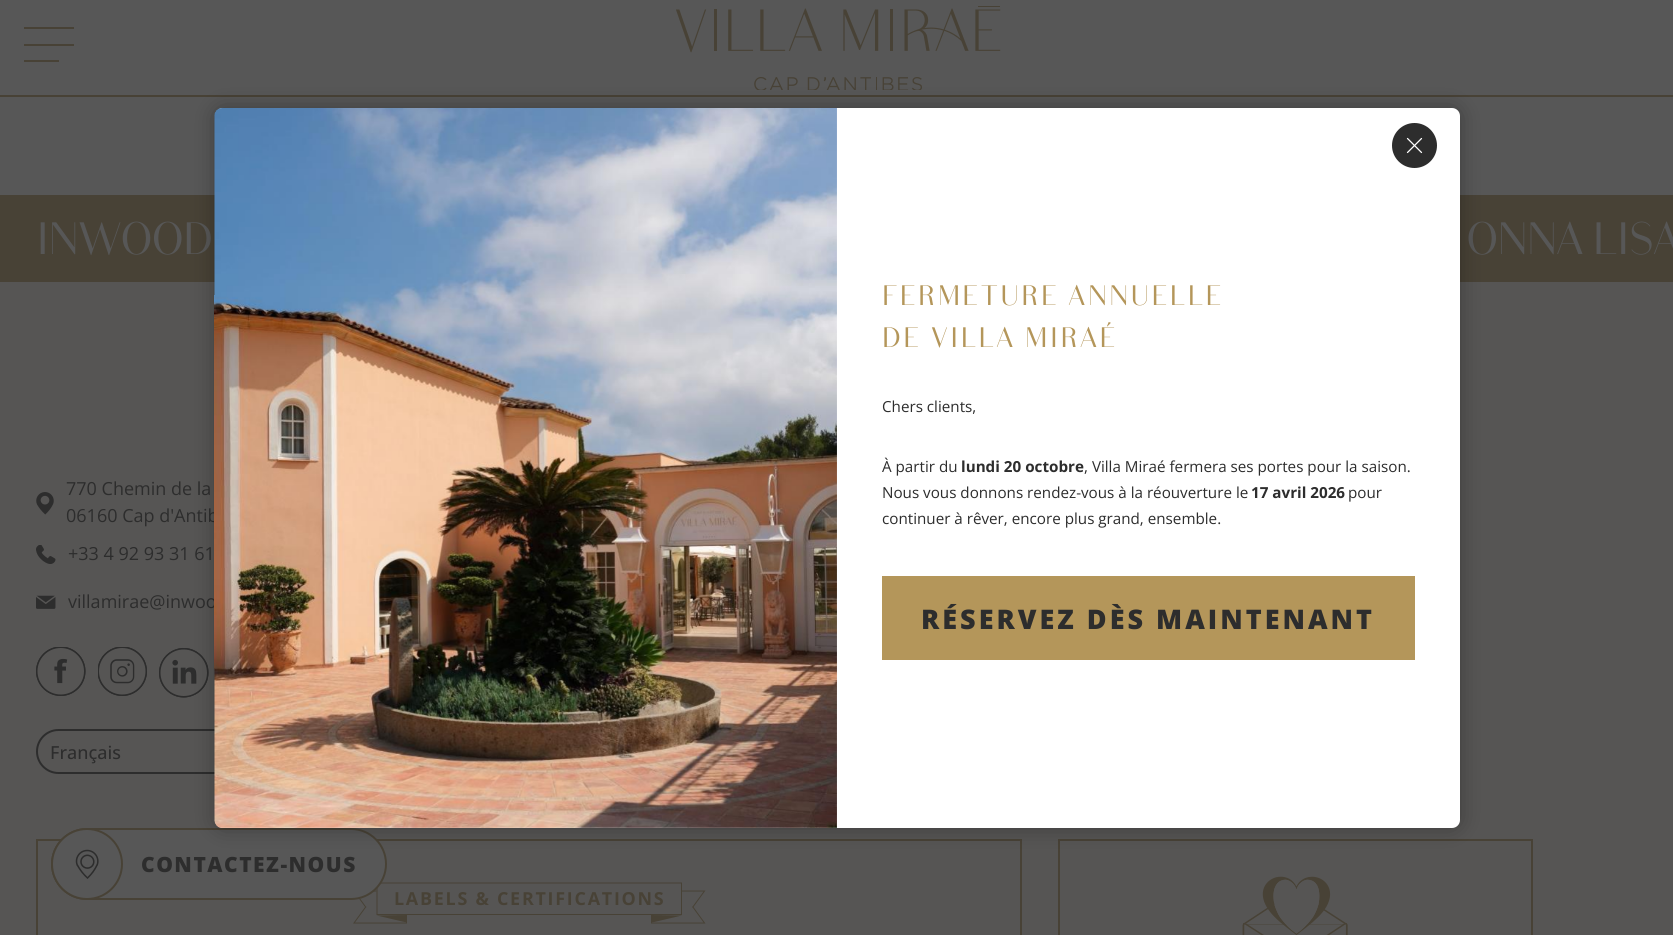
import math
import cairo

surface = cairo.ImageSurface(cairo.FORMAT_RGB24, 1673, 935)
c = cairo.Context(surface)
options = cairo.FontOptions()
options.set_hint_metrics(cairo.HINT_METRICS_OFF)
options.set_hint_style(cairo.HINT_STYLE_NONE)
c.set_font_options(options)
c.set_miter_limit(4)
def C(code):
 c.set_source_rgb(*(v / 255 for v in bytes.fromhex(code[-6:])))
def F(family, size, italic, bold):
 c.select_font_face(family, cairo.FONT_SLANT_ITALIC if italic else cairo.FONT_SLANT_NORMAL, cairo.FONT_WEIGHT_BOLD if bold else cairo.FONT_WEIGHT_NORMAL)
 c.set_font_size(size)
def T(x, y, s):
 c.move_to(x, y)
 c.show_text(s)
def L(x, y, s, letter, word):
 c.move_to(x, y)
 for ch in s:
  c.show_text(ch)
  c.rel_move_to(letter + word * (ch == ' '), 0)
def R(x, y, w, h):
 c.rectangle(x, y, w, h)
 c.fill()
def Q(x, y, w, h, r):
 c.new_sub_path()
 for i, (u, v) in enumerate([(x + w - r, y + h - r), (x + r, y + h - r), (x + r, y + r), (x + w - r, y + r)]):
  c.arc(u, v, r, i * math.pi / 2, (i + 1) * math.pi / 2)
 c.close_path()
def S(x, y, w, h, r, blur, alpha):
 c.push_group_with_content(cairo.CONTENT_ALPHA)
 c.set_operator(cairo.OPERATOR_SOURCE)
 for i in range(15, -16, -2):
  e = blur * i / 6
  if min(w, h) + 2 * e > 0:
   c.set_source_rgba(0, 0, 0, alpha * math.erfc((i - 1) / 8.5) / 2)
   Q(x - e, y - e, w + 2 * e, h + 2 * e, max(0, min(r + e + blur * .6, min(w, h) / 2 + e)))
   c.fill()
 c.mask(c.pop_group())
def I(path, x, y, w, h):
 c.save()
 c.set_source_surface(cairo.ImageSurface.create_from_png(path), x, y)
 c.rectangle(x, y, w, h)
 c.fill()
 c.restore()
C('575757')
c.paint()
C('484236')
R(0,95,1673,2)
R(24,27,50,2)
R(24,44,50,2)
R(24,60,35,2)
I('1.png',676,6,325,84)
R(0,195,1673,87)
F('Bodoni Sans',45,0,0)
C('575757')
T(36,254,'INWOOD')
T(1466,254,'ONNA LISA')
C('565554')
R(0,282,1673,653)
I('2.png',36,492,18,23)
F('Open Sans',18,0,0)
C('2d2d2d')
T(66,495,'770 Chemin de la')
T(66,522,'06160 Cap d\'Antib')
I('3.png',36,545,20,19)
T(68,560,'+33 4 92 93 31 61')
I('4.png',36,595,20,14)
T(68,608,'villamirae@inwoo')
I('5.png',36,647,50,49)
I('6.png',98,647,49,49)
I('7.png',159,647,50,51)
Q(37,730,253,43,21.5)
c.stroke()
F('Open Sans Medium',18,0,0)
T(50,759,'Français')
c.rectangle(37,840,984,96)
C('484236')
c.stroke()
c.new_path()
c.move_to(681.5,883)
c.line_to(377,883)
c.line_to(377,914.5)
c.line_to(681.5,914.5)
c.close_path()
c.set_line_width(1)
c.stroke()
c.new_path()
c.move_to(692.5,906.5)
c.line_to(704.5,923)
c.line_to(651.5,923)
c.line_to(651.5,914.5)
c.move_to(682,891)
c.line_to(704.5,891)
c.line_to(692.5,907.5)
c.stroke()
c.new_path()
c.move_to(406.5,922.5)
c.line_to(376.5,915.5)
c.line_to(406.5,915)
c.close_path()
c.fill()
c.new_path()
c.move_to(366,906.5)
c.line_to(354,923)
c.line_to(406.5,923)
c.line_to(406.5,914.5)
c.move_to(376.5,891)
c.line_to(354,891)
c.line_to(366,907.5)
c.stroke()
F('Open Sans',17.9,0,1)
L(394,905,'LABELS & CERTIFICATIONS',1.75,0)
c.new_path()
c.move_to(652,922.5)
c.line_to(682,915.5)
c.line_to(652,915)
c.close_path()
c.fill()
c.rectangle(1059,840,473,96)
c.set_line_width(2)
c.stroke()
I('8.png',1242,876,106,59)
C('575757')
Q(52,829,334,70,35)
c.fill_preserve()
C('484236')
c.stroke()
C('000000')
S(215,108,1245,720,8,11,.3)
C('ffffff')
Q(215,108,1245,720,8)
c.fill()
C('2d2d2d')
c.arc(1414.5,145.5,22.5,0,2 * math.pi)
c.fill()
I('9.png',1406,137,17,17)
I('10.png',214,108,623,720)
F('Bodoni Sans',28,0,0)
C('b4965a')
L(882,305,'FERMETURE ANNUELLE',3,0)
L(882,347,'DE VILLA MIRAÉ',3,0)
F('Open Sans',15.2,0,0)
C('2d2d2d')
T(882,412,'Chers clients,')
T(882,472,'À partir du')
F('Open Sans',15.2,0,1)
T(961,472,'lundi 20 octobre')
F('Open Sans',15.2,0,0)
T(1084,472,', Villa Miraé fermera ses portes pour la saison.')
T(882,498,'Nous vous donnons rendez-vous à la réouverture le')
F('Open Sans',15.2,0,1)
T(1251,498,'17 avril 2026')
F('Open Sans',15.2,0,0)
T(1348,498,'pour')
T(882,524,'continuer à rêver, encore plus grand, ensemble.')
C('b4965a')
R(882,576,533,84)
F('Open Sans ExtraBold',27,0,0)
C('2d2d2d')
L(921,629,'RÉSERVEZ DÈS MAINTENANT',3,0)
C('575757')
c.new_path()
c.arc(87,864,35,0,2 * math.pi)
c.fill_preserve()
C('484236')
c.stroke()
I('11.png',75,849,24,30)
F('Open Sans ExtraBold',21,0,0)
C('2d2d2d')
L(141,872,'CONTACTEZ-NOUS',1.5,0)
surface.write_to_png('o.png')
